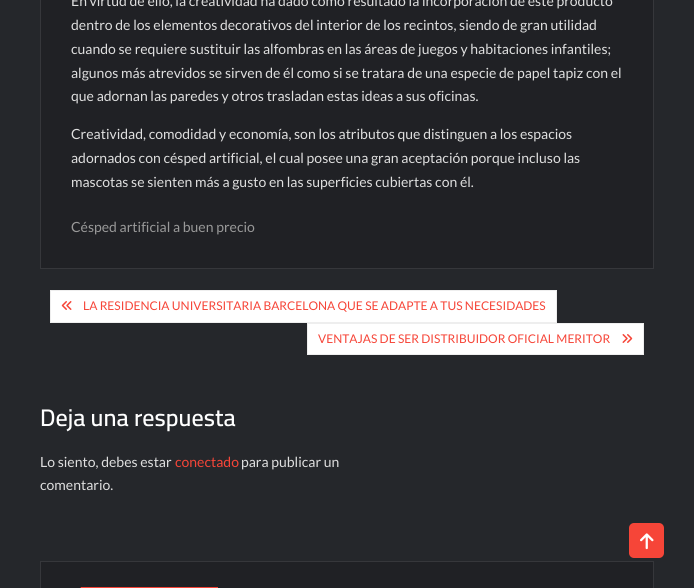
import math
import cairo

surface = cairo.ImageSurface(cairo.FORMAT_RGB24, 694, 588)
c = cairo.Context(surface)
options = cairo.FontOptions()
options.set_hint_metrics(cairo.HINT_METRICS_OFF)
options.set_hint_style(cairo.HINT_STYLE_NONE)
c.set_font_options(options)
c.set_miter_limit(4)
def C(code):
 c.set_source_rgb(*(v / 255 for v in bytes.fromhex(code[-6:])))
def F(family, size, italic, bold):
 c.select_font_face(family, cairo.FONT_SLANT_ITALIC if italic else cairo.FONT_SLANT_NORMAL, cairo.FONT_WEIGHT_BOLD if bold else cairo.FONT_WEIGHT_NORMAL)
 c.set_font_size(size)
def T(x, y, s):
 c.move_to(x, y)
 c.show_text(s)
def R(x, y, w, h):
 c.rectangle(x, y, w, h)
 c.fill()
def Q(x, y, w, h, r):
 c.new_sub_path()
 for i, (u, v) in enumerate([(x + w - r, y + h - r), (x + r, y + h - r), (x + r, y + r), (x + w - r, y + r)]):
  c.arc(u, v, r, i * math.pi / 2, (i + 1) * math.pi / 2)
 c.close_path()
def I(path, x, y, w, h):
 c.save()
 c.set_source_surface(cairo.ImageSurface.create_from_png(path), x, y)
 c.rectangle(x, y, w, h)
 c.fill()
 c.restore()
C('25272b')
c.paint()
C('202125')
c.rectangle(40.5,-.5,613,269)
c.fill_preserve()
C('36373b')
c.set_line_width(1)
c.stroke()
F('Lato',14,0,0)
C('dfdfdf')
T(71,6,'En virtud de ello, la creatividad ha dado como resultado la incorporación de este producto')
T(71,30,'dentro de los elementos decorativos del interior de los recintos, siendo de gran utilidad')
T(71,54,'cuando se requiere sustituir las alfombras en las áreas de juegos y habitaciones infantiles;')
T(71,78,'algunos más atrevidos se sirven de él como si se tratara de una especie de papel tapiz con el')
T(71,101,'que adornan las paredes y otros trasladan estas ideas a sus oficinas.')
T(71,139,'Creatividad, comodidad y economía, son los atributos que distinguen a los espacios')
T(71,163,'adornados con césped artificial, el cual posee una gran aceptación porque incluso las')
T(71,187,'mascotas se sienten más a gusto en las superficies cubiertas con él.')
C('999999')
T(71,232,'Césped artificial a buen precio')
C('ffffff')
c.rectangle(50.5,290.5,506,32)
c.fill_preserve()
C('eeeeee')
c.stroke()
I('1.png',61,301,11,9)
F('Lato',12,0,0)
C('f64538')
T(83,310,'LA RESIDENCIA UNIVERSITARIA BARCELONA QUE SE ADAPTE A TUS NECESIDADES')
C('ffffff')
c.rectangle(307.5,323.5,336,31)
c.fill_preserve()
C('eeeeee')
c.stroke()
C('f64538')
T(318,343,'VENTAJAS DE SER DISTRIBUIDOR OFICIAL MERITOR')
I('2.png',622,334,11,9)
F('Cairo SemiBold',24,0,0)
C('ffffff')
T(40,426,'Deja una respuesta')
F('Lato',14,0,0)
C('dfdfdf')
T(40,467,'Lo siento, debes estar')
C('f64538')
T(175,467,'conectado')
C('dfdfdf')
T(241,467,'para publicar un')
T(40,490,'comentario.')
C('202125')
c.rectangle(40.5,561.5,613,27)
c.fill_preserve()
C('36373b')
c.stroke()
C('f64538')
R(80,587,138,1)
C('202125')
c.new_path()
c.move_to(66,587)
c.line_to(81,587)
c.line_to(66,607)
c.close_path()
c.fill()
C('441c1a')
c.new_path()
c.move_to(81,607)
c.line_to(66,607)
c.line_to(81,587)
c.close_path()
c.fill()
C('f64538')
Q(629,523,35,35,5)
c.fill()
I('3.png',640,533,14,17)
surface.write_to_png('o.png')
